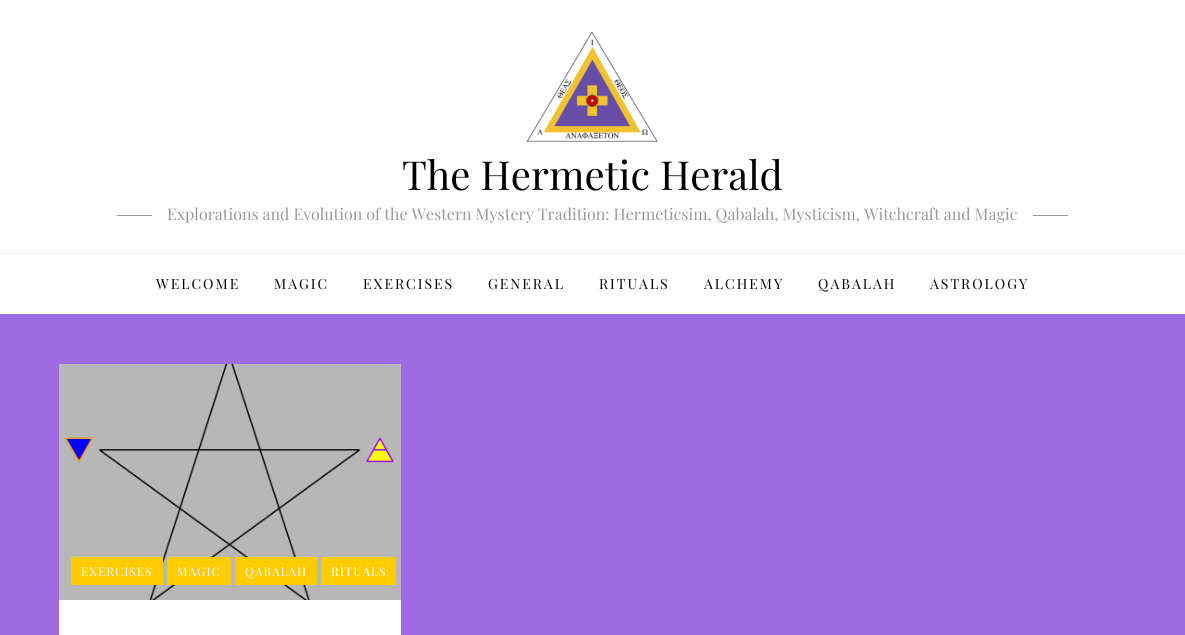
import math
import cairo

surface = cairo.ImageSurface(cairo.FORMAT_RGB24, 1185, 635)
c = cairo.Context(surface)
options = cairo.FontOptions()
options.set_hint_metrics(cairo.HINT_METRICS_OFF)
options.set_hint_style(cairo.HINT_STYLE_NONE)
c.set_font_options(options)
c.set_miter_limit(4)
def C(code):
 c.set_source_rgb(*(v / 255 for v in bytes.fromhex(code[-6:])))
def F(family, size, italic, bold):
 c.select_font_face(family, cairo.FONT_SLANT_ITALIC if italic else cairo.FONT_SLANT_NORMAL, cairo.FONT_WEIGHT_BOLD if bold else cairo.FONT_WEIGHT_NORMAL)
 c.set_font_size(size)
def T(x, y, s):
 c.move_to(x, y)
 c.show_text(s)
def L(x, y, s, letter, word):
 c.move_to(x, y)
 for ch in s:
  c.show_text(ch)
  c.rel_move_to(letter + word * (ch == ' '), 0)
def R(x, y, w, h):
 c.rectangle(x, y, w, h)
 c.fill()
def I(path, x, y, w, h):
 c.save()
 c.set_source_surface(cairo.ImageSurface.create_from_png(path), x, y)
 c.rectangle(x, y, w, h)
 c.fill()
 c.restore()
C('9e6ce2')
c.paint()
C('ffffff')
R(0,0,1185,314)
I('1.png',526,31,132,111)
F('Playfair Display',40,0,0)
C('000000')
T(402,190,'The Hermetic Herald')
C('999999')
R(117,215,35,1)
F('Playfair Display',16,0,0)
T(167,220,'Explorations and Evolution of the Western Mystery Tradition: Hermeticsim, Qabalah, Mysticism, Witchcraft and Magic')
R(1033,215,35,1)
C('eeeeee')
R(0,253,1185,1)
F('Playfair Display',14,0,0)
C('000000')
L(156,289,'WELCOME',2,0)
L(274,289,'MAGIC',2,0)
L(363,289,'EXERCISES',2,0)
L(488,289,'GENERAL',2,0)
L(599,289,'RITUALS',2,0)
L(704,289,'ALCHEMY',2,0)
L(818,289,'QABALAH',2,0)
L(930,289,'ASTROLOGY',2,0)
C('ffffff')
R(59,600,342,35)
I('2.png',59,364,342,236)
C('fecc01')
R(71,557,92,28)
F('Playfair Display',12,0,0)
C('ffffff')
L(81,576,'EXERCISES',1,0)
C('fecc01')
R(167,557,64,28)
C('ffffff')
L(177,576,'MAGIC',1,0)
C('fecc01')
R(235,557,82,28)
C('ffffff')
L(245,576,'QABALAH',1,0)
C('fecc01')
R(321,557,75,28)
C('ffffff')
L(331,576,'RITUALS',1,0)
surface.write_to_png('o.png')
